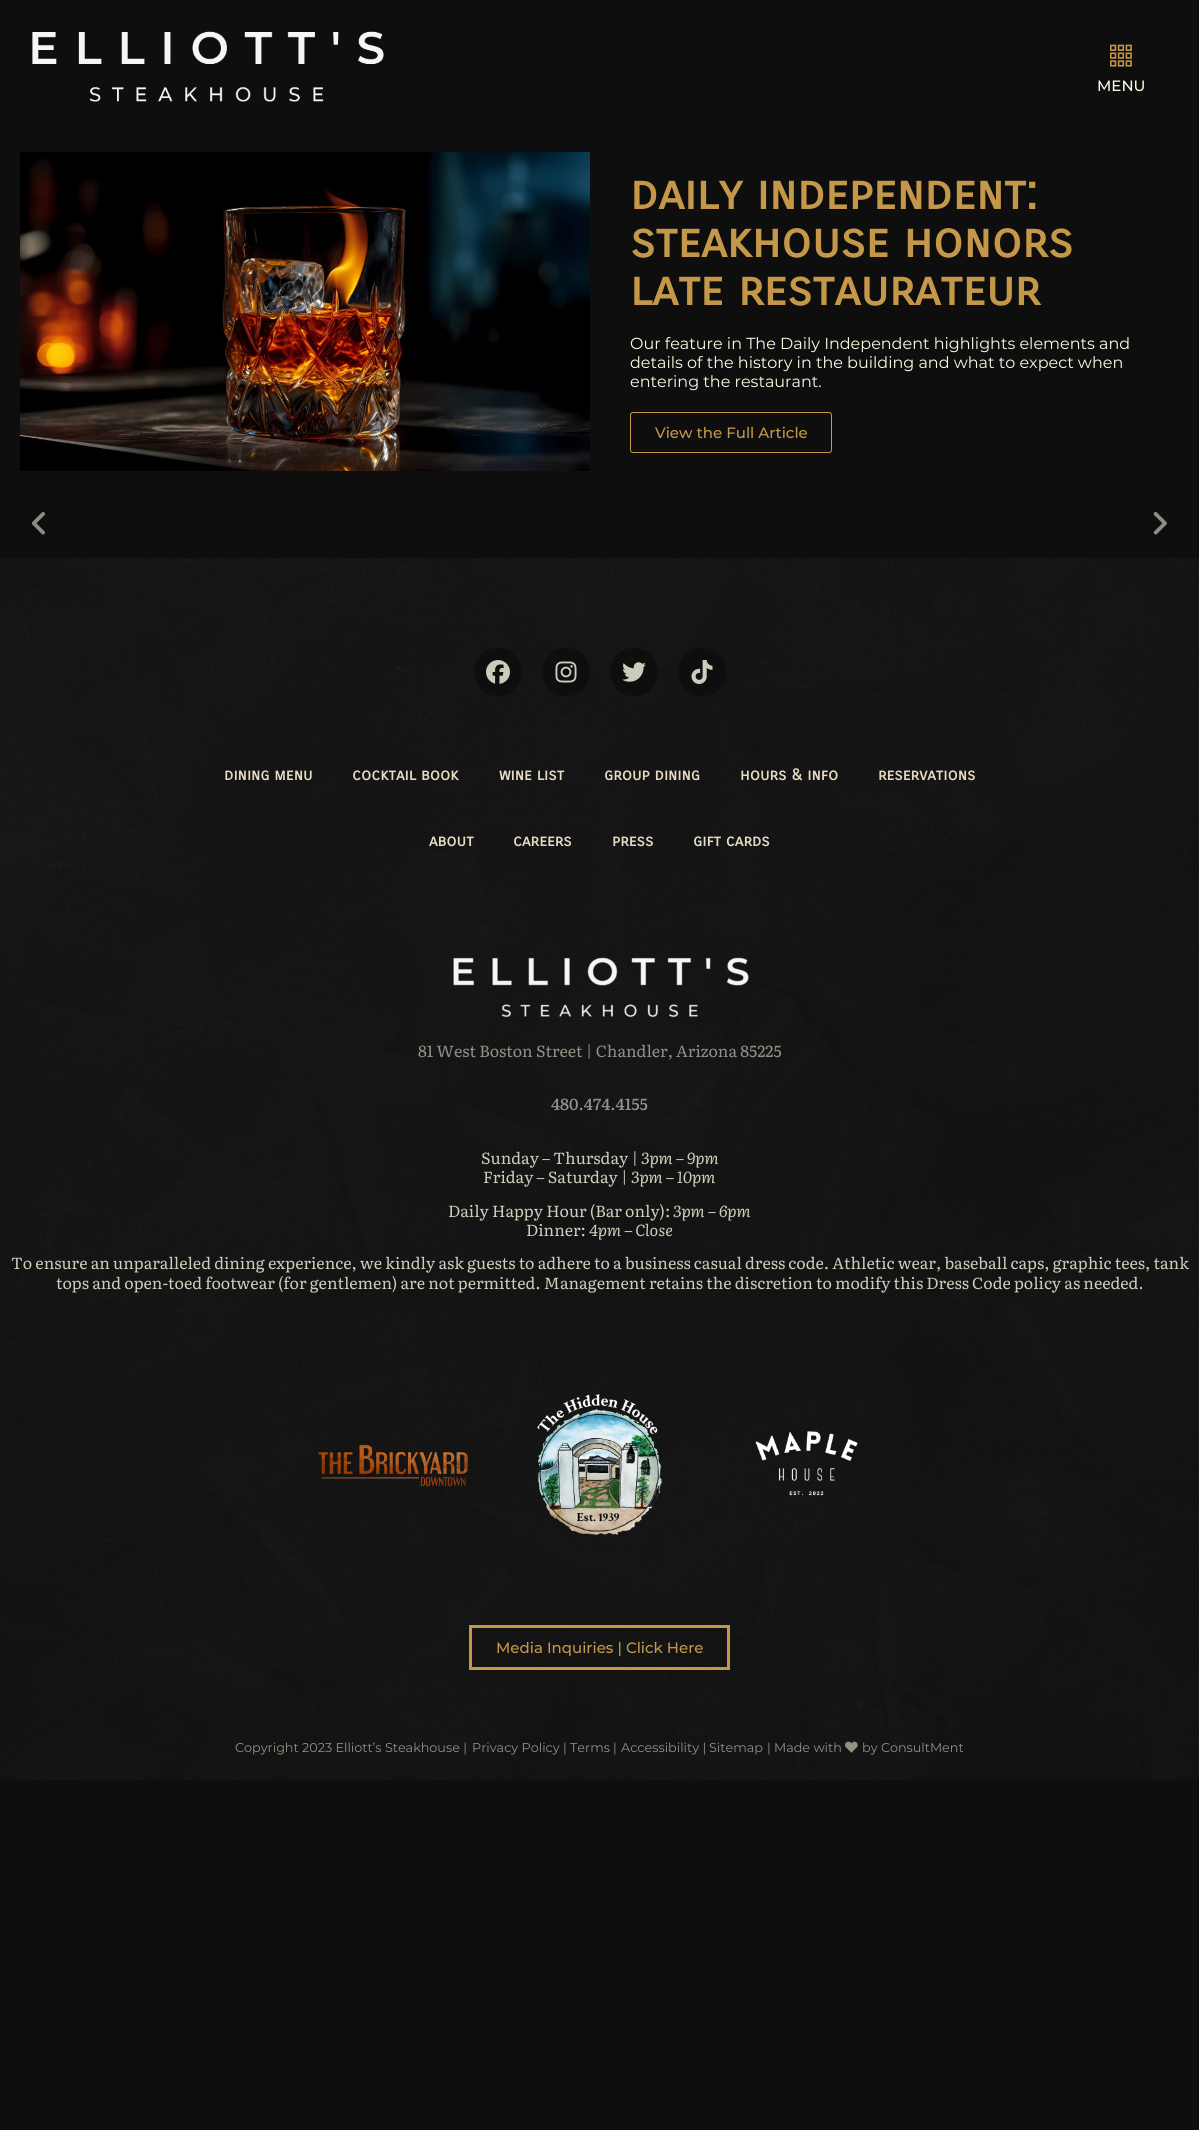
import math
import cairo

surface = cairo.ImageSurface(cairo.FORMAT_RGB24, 1199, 2130)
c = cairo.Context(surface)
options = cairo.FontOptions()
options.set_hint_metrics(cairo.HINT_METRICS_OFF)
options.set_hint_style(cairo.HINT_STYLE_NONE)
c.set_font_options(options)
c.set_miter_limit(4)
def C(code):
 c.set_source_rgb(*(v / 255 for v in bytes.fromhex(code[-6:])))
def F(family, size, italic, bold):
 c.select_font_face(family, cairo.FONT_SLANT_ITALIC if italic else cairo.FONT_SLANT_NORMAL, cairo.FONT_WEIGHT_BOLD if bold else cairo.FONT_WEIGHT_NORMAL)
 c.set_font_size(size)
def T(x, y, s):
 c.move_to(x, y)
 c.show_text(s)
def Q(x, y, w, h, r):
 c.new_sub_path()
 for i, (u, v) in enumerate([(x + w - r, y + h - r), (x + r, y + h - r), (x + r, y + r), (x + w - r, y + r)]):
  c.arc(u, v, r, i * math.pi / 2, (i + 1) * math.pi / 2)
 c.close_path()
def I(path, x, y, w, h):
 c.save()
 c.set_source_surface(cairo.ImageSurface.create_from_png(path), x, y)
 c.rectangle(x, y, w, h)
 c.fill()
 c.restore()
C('0e0e0e')
c.paint()
I('1.png',32,31,352,71)
I('2.png',1110,44,22,23)
F('Montserrat Medium',15,0,0)
C('f7fce3')
T(1097,91,'MENU')
I('3.png',20,152,570,319)
F('Carrois Gothic SC',48,0,1)
C('c59849')
T(630,209,'daily independent:')
T(630,257,'steakhouse honors')
T(630,305,'late restaurateur')
F('Montserrat',16,0,0)
C('f7fce3')
T(630,349,'Our feature in The Daily Independent highlights elements and')
T(630,368,'details of the history in the building and what to expect when')
T(630,387,'entering the restaurant.')
Q(630.5,412.5,201,40,2.5)
C('c59849')
c.set_line_width(1)
c.stroke()
F('Montserrat Medium',15,0,0)
T(655,438,'View the Full Article')
I('4.png',31,512,14,23)
I('5.png',1153,512,14,23)
I('6.png',0,558,1199,1222)
C('0e0e0e')
c.arc(498,672,24,0,2 * math.pi)
c.fill()
I('7.png',486,660,24,24)
c.arc(566,672,24,0,2 * math.pi)
c.fill()
I('8.png',555,661,22,22)
c.arc(634,672,24,0,2 * math.pi)
c.fill()
I('9.png',622,662,24,20)
c.arc(702,672,24,0,2 * math.pi)
c.fill()
I('10.png',691,660,22,24)
F('Carrois Gothic SC',16,0,1)
C('e6dac3')
T(224,780,'dining menu')
T(352,780,'cocktail book')
T(499,780,'wine list')
T(604,780,'group dining')
T(740,780,'hours & info')
T(878,780,'reservations')
T(429,846,'about')
T(513,846,'careers')
T(612,846,'press')
T(693,846,'gift cards')
I('11.png',453,957,296,61)
F('Literata',16,0,0)
C('8f9284')
T(418,1057,'81 West Boston Street | Chandler, Arizona 85225')
F('Literata Medium',16,0,0)
T(551,1110,'480.474.4155')
F('Literata',16,0,0)
C('caceba')
T(481,1164,'Sunday – Thursday |')
F('Literata',16,1,0)
T(641,1164,'3pm – 9pm')
F('Literata',16,0,0)
T(483,1183,'Friday – Saturday |')
F('Literata',16,1,0)
T(631,1183,'3pm – 10pm')
F('Literata',16,0,0)
T(448,1217,'Daily Happy Hour (Bar only):')
F('Literata',16,1,0)
T(673,1217,'3pm – 6pm')
F('Literata',16,0,0)
T(526,1236,'Dinner:')
F('Literata',16,1,0)
T(589,1236,'4pm – Close')
F('Literata',16,0,0)
T(11,1269,'To ensure an unparalleled dining experience, we kindly ask guests to adhere to a business casual dress code. Athletic wear, baseball caps, graphic tees, tank')
T(56,1289,'tops and open-toed footwear (for gentlemen) are not permitted. Management retains the discretion to modify this Dress Code policy as needed.')
I('12.png',318,1444,150,43)
I('13.png',537,1394,126,141)
I('14.png',755,1431,103,65)
c.new_path()
c.move_to(470.5,1626.5)
c.line_to(728.5,1626.5)
c.line_to(728.5,1668.5)
c.line_to(470.5,1668.5)
c.close_path()
C('c59849')
c.set_line_width(3)
c.stroke()
F('Montserrat Medium',15,0,0)
T(496,1653,'Media Inquiries | Click Here')
F('Montserrat',12.75,0,0)
C('8f9284')
T(235,1752,'Copyright 2023 Elliott’s Steakhouse |')
T(472,1752,'Privacy Policy |')
T(570,1752,'Terms')
T(613,1752,'|')
T(621,1752,'Accessibility |')
T(709,1752,'Sitemap')
T(767,1752,'|')
T(774,1752,'Made with')
I('15.png',845,1741,13,12)
T(862,1752,'by ConsultMent')
surface.write_to_png('o.png')
